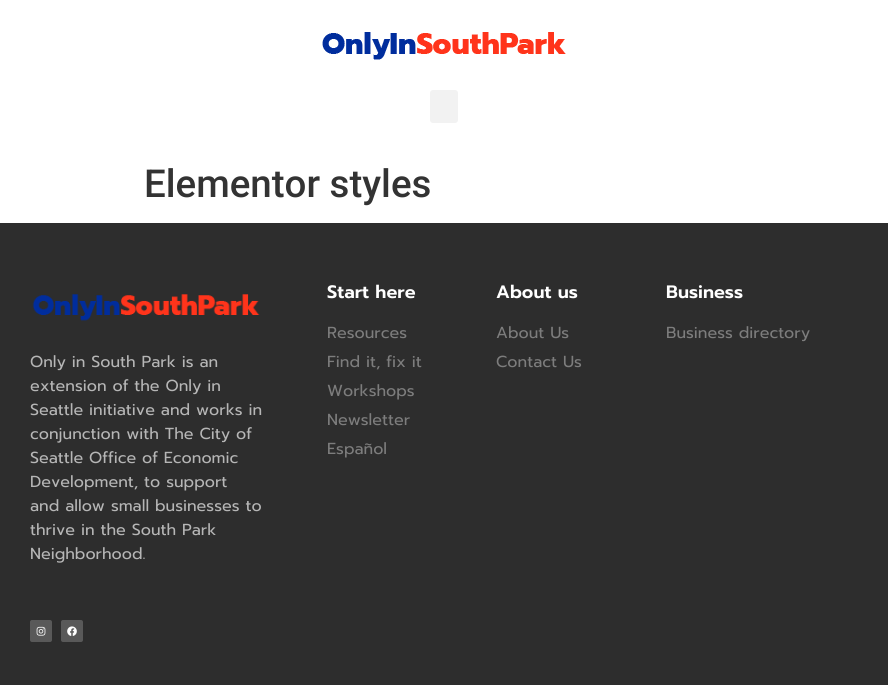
import math
import cairo

surface = cairo.ImageSurface(cairo.FORMAT_RGB24, 888, 685)
c = cairo.Context(surface)
options = cairo.FontOptions()
options.set_hint_metrics(cairo.HINT_METRICS_OFF)
options.set_hint_style(cairo.HINT_STYLE_NONE)
c.set_font_options(options)
c.set_miter_limit(4)
def C(code):
 c.set_source_rgb(*(v / 255 for v in bytes.fromhex(code[-6:])))
def F(family, size, italic, bold):
 c.select_font_face(family, cairo.FONT_SLANT_ITALIC if italic else cairo.FONT_SLANT_NORMAL, cairo.FONT_WEIGHT_BOLD if bold else cairo.FONT_WEIGHT_NORMAL)
 c.set_font_size(size)
def T(x, y, s):
 c.move_to(x, y)
 c.show_text(s)
def R(x, y, w, h):
 c.rectangle(x, y, w, h)
 c.fill()
def Q(x, y, w, h, r):
 c.new_sub_path()
 for i, (u, v) in enumerate([(x + w - r, y + h - r), (x + r, y + h - r), (x + r, y + r), (x + w - r, y + r)]):
  c.arc(u, v, r, i * math.pi / 2, (i + 1) * math.pi / 2)
 c.close_path()
def I(path, x, y, w, h):
 c.save()
 c.set_source_surface(cairo.ImageSurface.create_from_png(path), x, y)
 c.rectangle(x, y, w, h)
 c.fill()
 c.restore()
C('ffffff')
c.paint()
I('1.png',322,32,244,28)
C('f2f2f2')
Q(430,90,28,33,3)
c.fill()
F('Roboto Medium',38.5,0,0)
C('333333')
T(144,197,'Elementor styles')
C('2d2d2d')
R(0,223,888,462)
F('Prompt SemiBold',18,0,0)
C('ffffff')
T(327,298,'Start here')
F('Prompt',16,0,0)
C('7d7d7d')
T(327,338,'Resources')
T(327,367,'Find it, fix it')
T(327,396,'Workshops')
T(327,425,'Newsletter')
T(327,454,'Español')
F('Prompt SemiBold',18,0,0)
C('ffffff')
T(496,298,'About us')
F('Prompt',16,0,0)
C('7d7d7d')
T(496,338,'About Us')
T(496,367,'Contact Us')
F('Prompt SemiBold',18,0,0)
C('ffffff')
T(666,298,'Business')
F('Prompt',16,0,0)
C('7d7d7d')
T(666,338,'Business directory')
I('2.png',32,294,228,27)
C('b6b6b6')
T(30,367,'Only in South Park is an')
T(30,391,'extension of the Only in')
T(30,415,'Seattle initiative and works in')
T(30,439,'conjunction with The City of')
T(30,463,'Seattle Office of Economic')
T(30,487,'Development, to support')
T(30,511,'and allow small businesses to')
T(30,535,'thrive in the South Park')
T(30,559,'Neighborhood.')
C('595959')
Q(30,620,22,22,2)
c.fill()
I('3.png',36,626,10,10)
Q(61,620,22,22,2)
c.fill()
I('4.png',67,626,10,10)
surface.write_to_png('o.png')
